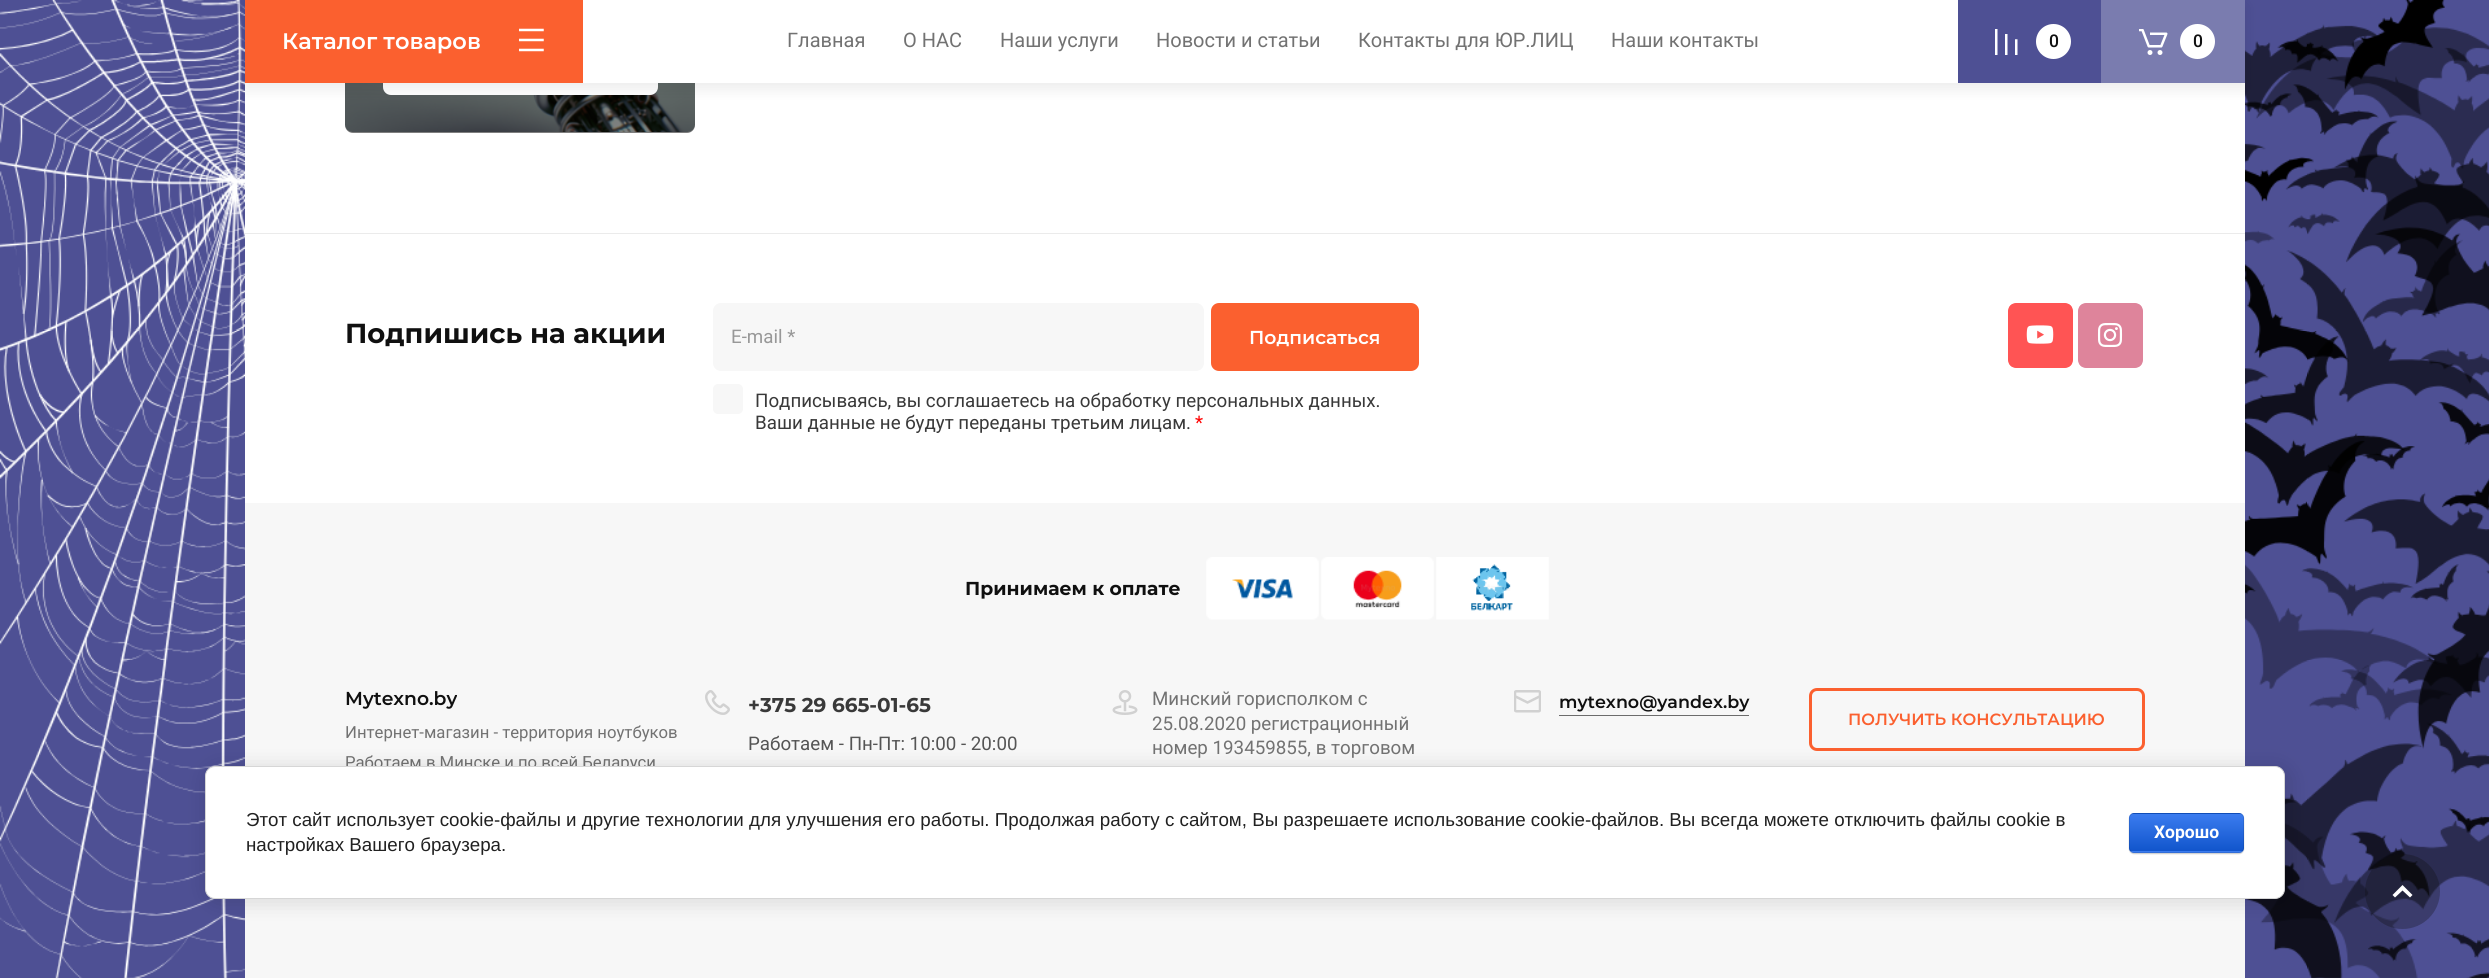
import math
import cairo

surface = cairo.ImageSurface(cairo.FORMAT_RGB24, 2489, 978)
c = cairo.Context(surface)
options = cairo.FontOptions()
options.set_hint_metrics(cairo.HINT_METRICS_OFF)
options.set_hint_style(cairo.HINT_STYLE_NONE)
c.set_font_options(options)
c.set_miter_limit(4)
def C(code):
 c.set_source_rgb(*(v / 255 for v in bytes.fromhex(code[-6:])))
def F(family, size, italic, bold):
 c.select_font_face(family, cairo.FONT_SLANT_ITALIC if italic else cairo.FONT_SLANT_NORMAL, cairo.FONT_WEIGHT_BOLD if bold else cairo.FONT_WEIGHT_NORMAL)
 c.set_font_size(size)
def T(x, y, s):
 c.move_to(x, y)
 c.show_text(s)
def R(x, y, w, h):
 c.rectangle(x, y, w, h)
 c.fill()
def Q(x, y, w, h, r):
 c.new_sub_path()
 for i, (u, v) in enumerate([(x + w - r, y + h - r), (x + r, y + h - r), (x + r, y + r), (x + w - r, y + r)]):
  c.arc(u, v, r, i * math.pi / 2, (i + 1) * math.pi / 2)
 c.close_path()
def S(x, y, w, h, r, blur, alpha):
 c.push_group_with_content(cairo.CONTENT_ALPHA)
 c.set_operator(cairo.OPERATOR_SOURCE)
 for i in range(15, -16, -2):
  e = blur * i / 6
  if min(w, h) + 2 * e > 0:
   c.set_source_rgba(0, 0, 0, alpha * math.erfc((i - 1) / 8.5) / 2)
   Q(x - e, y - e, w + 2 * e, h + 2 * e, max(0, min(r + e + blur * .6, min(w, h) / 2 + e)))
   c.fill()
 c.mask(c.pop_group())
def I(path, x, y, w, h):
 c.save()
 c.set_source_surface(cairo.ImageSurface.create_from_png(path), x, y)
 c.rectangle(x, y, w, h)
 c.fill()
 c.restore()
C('4e5094')
c.paint()
I('1.png',0,0,2489,978)
C('ffffff')
R(245,83,2000,150)
C('ebebeb')
R(245,233,2000,1)
I('2.png',345,83,350,49)
c.set_source_rgba(0,0,0,0.5)
Q(345,-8,350,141,8)
c.fill()
C('ffffff')
Q(383,33,275,62,8)
c.fill()
C('000000')
S(245,6,2000,83,0,7.5,.08)
C('ffffff')
R(583,0,1375,83)
C('fb602f')
R(245,0,338,83)
F('Montserrat SemiBold',22.5,0,0)
C('ffffff')
T(282,49,'Каталог товаров')
I('3.png',519,28,25,24)
F('Roboto',20,0,0)
C('727272')
T(787,47,'Главная')
T(903,47,'О НАС')
T(1000,47,'Наши услуги')
T(1156,47,'Новости и статьи')
T(1358,47,'Контакты для ЮР.ЛИЦ')
T(1611,47,'Наши контакты')
C('4e5094')
R(1958,0,143,83)
I('4.png',1995,29,23,26)
C('ffffff')
c.arc(2053.5,41.5,17.5,0,2 * math.pi)
c.fill()
F('Roboto Medium',17.5,0,0)
C('101010')
T(2049,47,'0')
C('7a7caf')
R(2101,0,144,83)
I('5.png',2139,29,29,26)
C('ffffff')
c.arc(2197.5,41.5,17.5,0,2 * math.pi)
c.fill()
C('101010')
T(2193,47,'0')
C('ffffff')
R(245,234,2000,269)
F('Montserrat',27.5,0,1)
C('101010')
T(345,343,'Подпишись на акции')
C('f7f7f7')
Q(713,303,491,68,8)
c.fill()
F('Roboto',18.75,0,0)
C('989898')
T(731,343,'E-mail *')
C('fb602f')
Q(1211,303,208,68,8)
c.fill()
F('Montserrat SemiBold',18.75,0,0)
C('ffffff')
T(1249,344,'Подписаться')
C('f7f7f7')
Q(713,384,30,30,5)
c.fill()
F('Roboto',18.75,0,0)
C('393939')
T(755,407,'Подписываясь, вы соглашаетесь на обработку персональных данных.')
T(755,429,'Ваши данные не будут переданы третьим лицам.')
C('ff0000')
T(1195,429,'*')
I('6.png',2008,303,65,65)
I('7.png',2078,303,65,65)
C('f7f7f7')
R(245,503,2000,475)
F('Montserrat',18.75,0,1)
C('101010')
T(965,595,'Принимаем к оплате')
I('8.png',1206,557,113,63)
I('9.png',1321,557,113,63)
I('10.png',1436,557,113,63)
F('Montserrat SemiBold',18.75,0,0)
T(345,705,'Mytexno.by')
F('Roboto',16.7,0,0)
C('727272')
T(345,738,'Интернет-магазин - территория ноутбуков')
T(345,768,'Работаем в Минске и по всей Беларуси')
I('11.png',705,690,25,25)
F('Montserrat',20,0,1)
C('393939')
T(748,712,'+375 29 665-01-65')
F('Roboto',18.75,0,0)
C('555555')
T(748,750,'Работаем - Пн-Пт: 10:00 - 20:00')
I('12.png',1112,690,26,25)
C('727272')
T(1152,705,'Минский горисполком с')
T(1152,730,'25.08.2020 регистрационный')
T(1152,754,'номер 193459855, в торговом')
I('13.png',1514,690,27,23)
F('Montserrat SemiBold',17.5,0,0)
C('101010')
T(1559,708,'mytexno@yandex.by')
C('6c6c6c')
R(1559,715,190,1)
Q(1810.5,689.5,333,60,6.5)
C('fb602f')
c.set_line_width(3)
c.stroke()
F('Montserrat SemiBold',16.25,0,0)
T(1848,725,'ПОЛУЧИТЬ КОНСУЛЬТАЦИЮ')
c.set_source_rgba(0.063,0.063,0.063,0.3)
c.new_path()
c.arc(2402.5,891.5,37.5,0,2 * math.pi)
c.fill()
C('ffffff')
c.new_path()
c.move_to(2392.5,895)
c.line_to(2395,897.5)
c.line_to(2402.5,890.5)
c.line_to(2410,897.5)
c.line_to(2412.5,895)
c.line_to(2402.5,885)
c.close_path()
c.fill()
C('000000')
S(208,769,2080,132,10,11,.14)
C('ffffff')
Q(205.5,766.5,2079,132,9.5)
c.fill_preserve()
C('d6d6d6')
c.set_line_width(1)
c.stroke()
F('Liberation Sans',18.75,0,0)
C('212121')
T(246,826,'Этот сайт использует cookie-файлы и другие технологии для улучшения его работы. Продолжая работу с сайтом, Вы разрешаете использование cookie-файлов. Вы всегда можете отключить файлы cookie в')
T(246,851,'настройках Вашего браузера.')
C('000000')
S(2129,814,115,40,5,.5,.2)
c.save()
Q(2129,813,115,40,5)
c.clip()
gradient = cairo.LinearGradient(2186,776,2186,814)
gradient.add_color_stop_rgba(0,0.231,0.486,0.937,1)
gradient.add_color_stop_rgba(1,0.067,0.333,0.8,1)
c.set_source(gradient)
R(2129,813,115,1)
gradient = cairo.LinearGradient(2186,814,2186,851)
gradient.add_color_stop_rgba(0,0.231,0.486,0.937,1)
gradient.add_color_stop_rgba(1,0.067,0.333,0.8,1)
c.set_source(gradient)
R(2129,814,115,37)
gradient = cairo.LinearGradient(2186,851,2186,889)
gradient.add_color_stop_rgba(0,0.231,0.486,0.937,1)
gradient.add_color_stop_rgba(1,0.067,0.333,0.8,1)
c.set_source(gradient)
R(2129,851,115,2)
c.restore()
Q(2129.5,813.5,114,39,4.5)
c.set_source_rgba(0,0,0,0.1)
c.stroke()
F('Roboto',17.5,0,1)
C('ffffff')
T(2154,838,'Хорошо')
surface.write_to_png('o.png')
